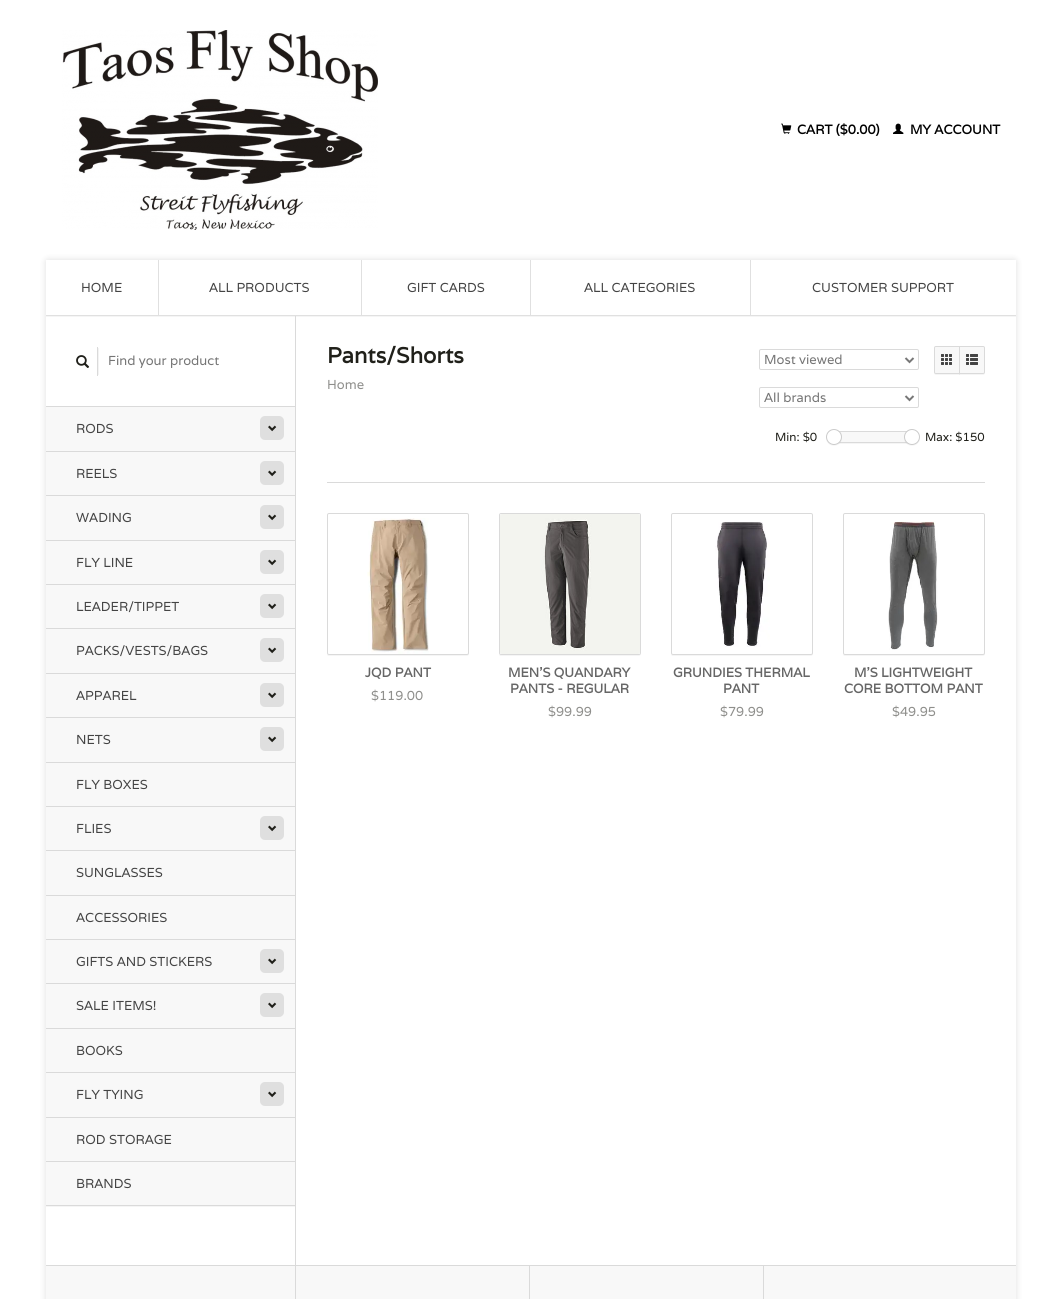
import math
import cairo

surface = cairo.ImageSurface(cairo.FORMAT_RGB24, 1061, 1299)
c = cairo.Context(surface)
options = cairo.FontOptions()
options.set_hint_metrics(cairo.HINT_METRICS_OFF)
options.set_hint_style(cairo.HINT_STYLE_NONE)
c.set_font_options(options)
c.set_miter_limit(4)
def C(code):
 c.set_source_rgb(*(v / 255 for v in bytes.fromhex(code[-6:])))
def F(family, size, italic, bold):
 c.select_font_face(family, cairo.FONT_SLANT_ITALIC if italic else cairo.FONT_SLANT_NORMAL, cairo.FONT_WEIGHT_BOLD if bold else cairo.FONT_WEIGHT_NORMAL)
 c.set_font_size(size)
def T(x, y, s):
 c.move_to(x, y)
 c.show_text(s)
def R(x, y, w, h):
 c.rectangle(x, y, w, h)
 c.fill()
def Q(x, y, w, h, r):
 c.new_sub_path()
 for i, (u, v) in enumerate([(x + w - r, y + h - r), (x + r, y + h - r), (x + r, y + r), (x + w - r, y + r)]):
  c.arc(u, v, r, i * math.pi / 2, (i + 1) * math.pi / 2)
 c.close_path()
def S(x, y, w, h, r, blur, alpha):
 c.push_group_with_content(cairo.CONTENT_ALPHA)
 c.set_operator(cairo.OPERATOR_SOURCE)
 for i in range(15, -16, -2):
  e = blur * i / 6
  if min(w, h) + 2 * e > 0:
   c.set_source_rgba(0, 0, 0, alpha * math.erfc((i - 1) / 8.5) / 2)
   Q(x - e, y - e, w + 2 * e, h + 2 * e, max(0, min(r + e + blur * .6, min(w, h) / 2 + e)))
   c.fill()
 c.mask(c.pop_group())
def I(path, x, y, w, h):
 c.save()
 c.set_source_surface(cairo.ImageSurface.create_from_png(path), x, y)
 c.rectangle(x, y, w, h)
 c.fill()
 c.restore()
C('ffffff')
c.paint()
I('1.png',62,30,316,200)
I('2.png',781,123,11,11)
F('Varela',13,0,1)
C('000000')
T(797,134,'CART ($0.00)')
I('3.png',893,123,11,11)
T(910,134,'MY ACCOUNT')
C('000000')
S(46,260,970,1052,2,3.5,.13)
C('ffffff')
R(46,260,970,1005)
C('f5f5f5')
R(46,316,970,1)
C('e0e0e0')
R(46,315,970,1)
R(158,260,1,55)
F('Varela',13,0,0)
C('444444')
T(81,292,'HOME')
C('e0e0e0')
R(361,260,1,55)
C('444444')
T(209,292,'ALL PRODUCTS')
C('e0e0e0')
R(530,260,1,55)
C('444444')
T(407,292,'GIFT CARDS')
C('e0e0e0')
R(750,260,1,55)
C('444444')
T(584,292,'ALL CATEGORIES')
T(812,292,'CUSTOMER SUPPORT')
C('dadada')
R(295,316,1,949)
c.save()
c.rectangle(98,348,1,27)
c.clip()
C('000000')
S(71,348,28,27,0,.5,.06)
c.restore()
R(97,347,1,29)
I('4.png',76,355,14,13)
C('757575')
T(108,365,'Find your product')
C('f8f8f8')
R(46,407,249,44)
C('dadada')
R(46,406,249,1)
C('444444')
T(76,433,'RODS')
C('dfdfdf')
Q(260,416,24,24,5)
c.fill()
I('5.png',268,425,9,7)
C('f8f8f8')
R(46,452,249,43)
C('dadada')
R(46,451,249,1)
C('444444')
T(76,478,'REELS')
C('dfdfdf')
Q(260,461,24,24,5)
c.fill()
I('5.png',268,470,9,7)
C('f8f8f8')
R(46,496,249,44)
C('dadada')
R(46,495,249,1)
C('444444')
T(76,522,'WADING')
C('dfdfdf')
Q(260,505,24,24,5)
c.fill()
I('5.png',268,514,9,7)
C('f8f8f8')
R(46,541,249,43)
C('dadada')
R(46,540,249,1)
C('444444')
T(76,567,'FLY LINE')
C('dfdfdf')
Q(260,550,24,24,5)
c.fill()
I('5.png',268,559,9,7)
C('f8f8f8')
R(46,585,249,43)
C('dadada')
R(46,584,249,1)
C('444444')
T(76,611,'LEADER/TIPPET')
C('dfdfdf')
Q(260,594,24,24,5)
c.fill()
I('5.png',268,603,9,7)
C('f8f8f8')
R(46,629,249,44)
C('dadada')
R(46,628,249,1)
C('444444')
T(76,655,'PACKS/VESTS/BAGS')
C('dfdfdf')
Q(260,638,24,24,5)
c.fill()
I('5.png',268,647,9,7)
C('f8f8f8')
R(46,674,249,43)
C('dadada')
R(46,673,249,1)
C('444444')
T(76,700,'APPAREL')
C('dfdfdf')
Q(260,683,24,24,5)
c.fill()
I('5.png',268,692,9,7)
C('f8f8f8')
R(46,718,249,44)
C('dadada')
R(46,717,249,1)
C('444444')
T(76,744,'NETS')
C('dfdfdf')
Q(260,727,24,24,5)
c.fill()
I('5.png',268,736,9,7)
C('f8f8f8')
R(46,763,249,43)
C('dadada')
R(46,762,249,1)
C('444444')
T(76,789,'FLY BOXES')
C('f8f8f8')
R(46,807,249,43)
C('dadada')
R(46,806,249,1)
C('444444')
T(76,833,'FLIES')
C('dfdfdf')
Q(260,816,24,24,5)
c.fill()
I('5.png',268,825,9,7)
C('f8f8f8')
R(46,851,249,44)
C('dadada')
R(46,850,249,1)
C('444444')
T(76,877,'SUNGLASSES')
C('f8f8f8')
R(46,896,249,43)
C('dadada')
R(46,895,249,1)
C('444444')
T(76,922,'ACCESSORIES')
C('f8f8f8')
R(46,940,249,43)
C('dadada')
R(46,939,249,1)
C('444444')
T(76,966,'GIFTS AND STICKERS')
C('dfdfdf')
Q(260,949,24,24,5)
c.fill()
I('5.png',268,958,9,7)
C('f8f8f8')
R(46,984,249,44)
C('dadada')
R(46,983,249,1)
C('444444')
T(76,1010,'SALE ITEMS!')
C('dfdfdf')
Q(260,993,24,24,5)
c.fill()
I('5.png',268,1002,9,7)
C('f8f8f8')
R(46,1029,249,43)
C('dadada')
R(46,1028,249,1)
C('444444')
T(76,1055,'BOOKS')
C('f8f8f8')
R(46,1073,249,44)
C('dadada')
R(46,1072,249,1)
C('444444')
T(76,1099,'FLY TYING')
C('dfdfdf')
Q(260,1082,24,24,5)
c.fill()
I('5.png',268,1091,9,7)
C('f8f8f8')
R(46,1118,249,43)
C('dadada')
R(46,1117,249,1)
C('444444')
T(76,1144,'ROD STORAGE')
C('f5f5f5')
R(46,1206,249,1)
C('f8f8f8')
R(46,1162,249,43)
C('dadada')
R(46,1161,249,1)
R(46,1205,249,1)
C('444444')
T(76,1188,'BRANDS')
F('Varela',22,0,1)
C('20201a')
T(327,363,'Pants/Shorts')
F('Varela',13,0,0)
C('8f8f8c')
T(327,389,'Home')
Q(759.5,349.5,159,20,1.5)
C('dadada')
c.set_line_width(1)
c.stroke()
c.new_path()
c.move_to(905.5,358)
c.line_to(909.5,362)
c.line_to(913.5,358)
C('777777')
c.set_line_width(2)
c.stroke()
C('757575')
T(764,364,'Most viewed')
C('f5f5f5')
c.new_path()
c.move_to(934,372)
c.line_to(934,373)
c.curve_to(934,374,935,375,936,375)
c.line_to(960,375)
c.line_to(960,374)
c.line_to(936,374)
c.curve_to(935,374,934,373,934,372)
c.close_path()
c.fill()
C('f8f8f8')
c.new_path()
c.move_to(936,346.5)
c.line_to(959.5,346.5)
c.line_to(959.5,373.5)
c.line_to(936,373.5)
c.curve_to(935,373.5,934.5,373,934.5,372)
c.line_to(934.5,348)
c.curve_to(934.5,347,935,346.5,936,346.5)
c.close_path()
c.fill_preserve()
C('dadada')
c.set_line_width(1)
c.stroke()
I('6.png',941,354,11,11)
c.set_source_rgba(0,0,0,0.04)
c.new_path()
c.move_to(959,374)
c.line_to(959,375)
c.line_to(983,375)
c.curve_to(984,375,985,374,985,373)
c.line_to(985,372)
c.curve_to(985,373,984,374,983,374)
c.close_path()
c.fill()
C('f8f8f8')
c.new_path()
c.move_to(959.5,346.5)
c.line_to(983,346.5)
c.curve_to(984,346.5,984.5,347,984.5,348)
c.line_to(984.5,372)
c.curve_to(984.5,373,984,373.5,983,373.5)
c.line_to(959.5,373.5)
c.close_path()
c.fill_preserve()
C('dadada')
c.stroke()
I('7.png',966,354,12,11)
Q(759.5,387.5,159,20,1.5)
c.stroke()
c.new_path()
c.move_to(905.5,396)
c.line_to(909.5,400)
c.line_to(913.5,396)
C('777777')
c.set_line_width(2)
c.stroke()
C('757575')
T(764,402,'All brands')
F('Varela',11.75,0,0)
C('20201a')
T(775,441,'Min: $0')
C('f5f5f5')
R(835,443,78,1)
C('f8f8f8')
R(840,432,66,10)
c.rectangle(835.5,431.5,77,11)
C('dadada')
c.set_line_width(1)
c.stroke()
c.set_source_rgba(0,0,0,0.04)
c.new_path()
c.move_to(826,437.5)
c.curve_to(825.5,448.5,842.5,448.5,842,437.5)
c.curve_to(841.5,447.5,826.5,447.5,826,437.5)
c.close_path()
c.fill()
C('ffffff')
c.arc(834,437,7.5,0,2 * math.pi)
c.fill_preserve()
C('cbcbcb')
c.stroke()
c.set_source_rgba(0,0,0,0.04)
c.new_path()
c.move_to(904,437.5)
c.curve_to(903.5,448.5,920.5,448.5,920,437.5)
c.curve_to(919.5,447.5,904.5,447.5,904,437.5)
c.close_path()
c.fill()
C('ffffff')
c.arc(912,437,7.5,0,2 * math.pi)
c.fill_preserve()
C('cbcbcb')
c.stroke()
C('20201a')
T(925,441,'Max: $150')
C('dadada')
R(327,482,658,1)
C('f5f5f5')
c.new_path()
c.move_to(327,653)
c.curve_to(327,654,327,655,328,656)
c.line_to(467,656)
c.line_to(469,655)
c.line_to(469,653)
c.curve_to(469,654,468,655,467,655)
c.line_to(329,655)
c.curve_to(328,655,327,654,327,653)
c.close_path()
c.fill()
Q(327.5,513.5,141,141,1.5)
C('dadada')
c.stroke()
I('8.png',367,518,62,136)
F('Varela',13,0,1)
C('666666')
T(365,677,'JQD PANT')
F('Varela',13,0,0)
C('8f8f8c')
T(371,700,'$119.00')
C('f5f5f5')
c.new_path()
c.move_to(499,653)
c.curve_to(499,654,499,655,500,656)
c.line_to(639,656)
c.line_to(641,655)
c.line_to(641,653)
c.curve_to(641,654,640,655,639,655)
c.line_to(501,655)
c.curve_to(500,655,499,654,499,653)
c.close_path()
c.fill()
Q(499.5,513.5,141,141,1.5)
C('dadada')
c.stroke()
I('9.png',500,514,140,140)
F('Varela',13,0,1)
C('666666')
T(508,677,'MEN\'S QUANDARY')
T(510,693,'PANTS - REGULAR')
F('Varela',13,0,0)
C('8f8f8c')
T(548,716,'$99.99')
C('f5f5f5')
c.new_path()
c.move_to(671,653)
c.curve_to(671,654,671,655,672,656)
c.line_to(811,656)
c.line_to(813,655)
c.line_to(813,653)
c.curve_to(813,654,812,655,811,655)
c.line_to(673,655)
c.curve_to(672,655,671,654,671,653)
c.close_path()
c.fill()
Q(671.5,513.5,141,141,1.5)
C('dadada')
c.stroke()
I('10.png',715,522,55,125)
F('Varela',13,0,1)
C('666666')
T(673,677,'GRUNDIES THERMAL')
T(723,693,'PANT')
F('Varela',13,0,0)
C('8f8f8c')
T(720,716,'$79.99')
C('f5f5f5')
c.new_path()
c.move_to(843,653)
c.curve_to(843,654,843,655,844,656)
c.line_to(983,656)
c.line_to(985,655)
c.line_to(985,653)
c.curve_to(985,654,984,655,983,655)
c.line_to(845,655)
c.curve_to(844,655,843,654,843,653)
c.close_path()
c.fill()
Q(843.5,513.5,141,141,1.5)
C('dadada')
c.stroke()
I('11.png',888,521,50,129)
F('Varela',13,0,1)
C('666666')
T(854,677,'M\'S LIGHTWEIGHT')
T(844,693,'CORE BOTTOM PANT')
F('Varela',13,0,0)
C('8f8f8c')
T(892,716,'$49.95')
C('f8f8f8')
R(46,1266,970,33)
C('dadada')
R(46,1265,970,1)
R(295,1266,1,33)
R(529,1266,1,33)
R(763,1266,1,33)
surface.write_to_png('o.png')
